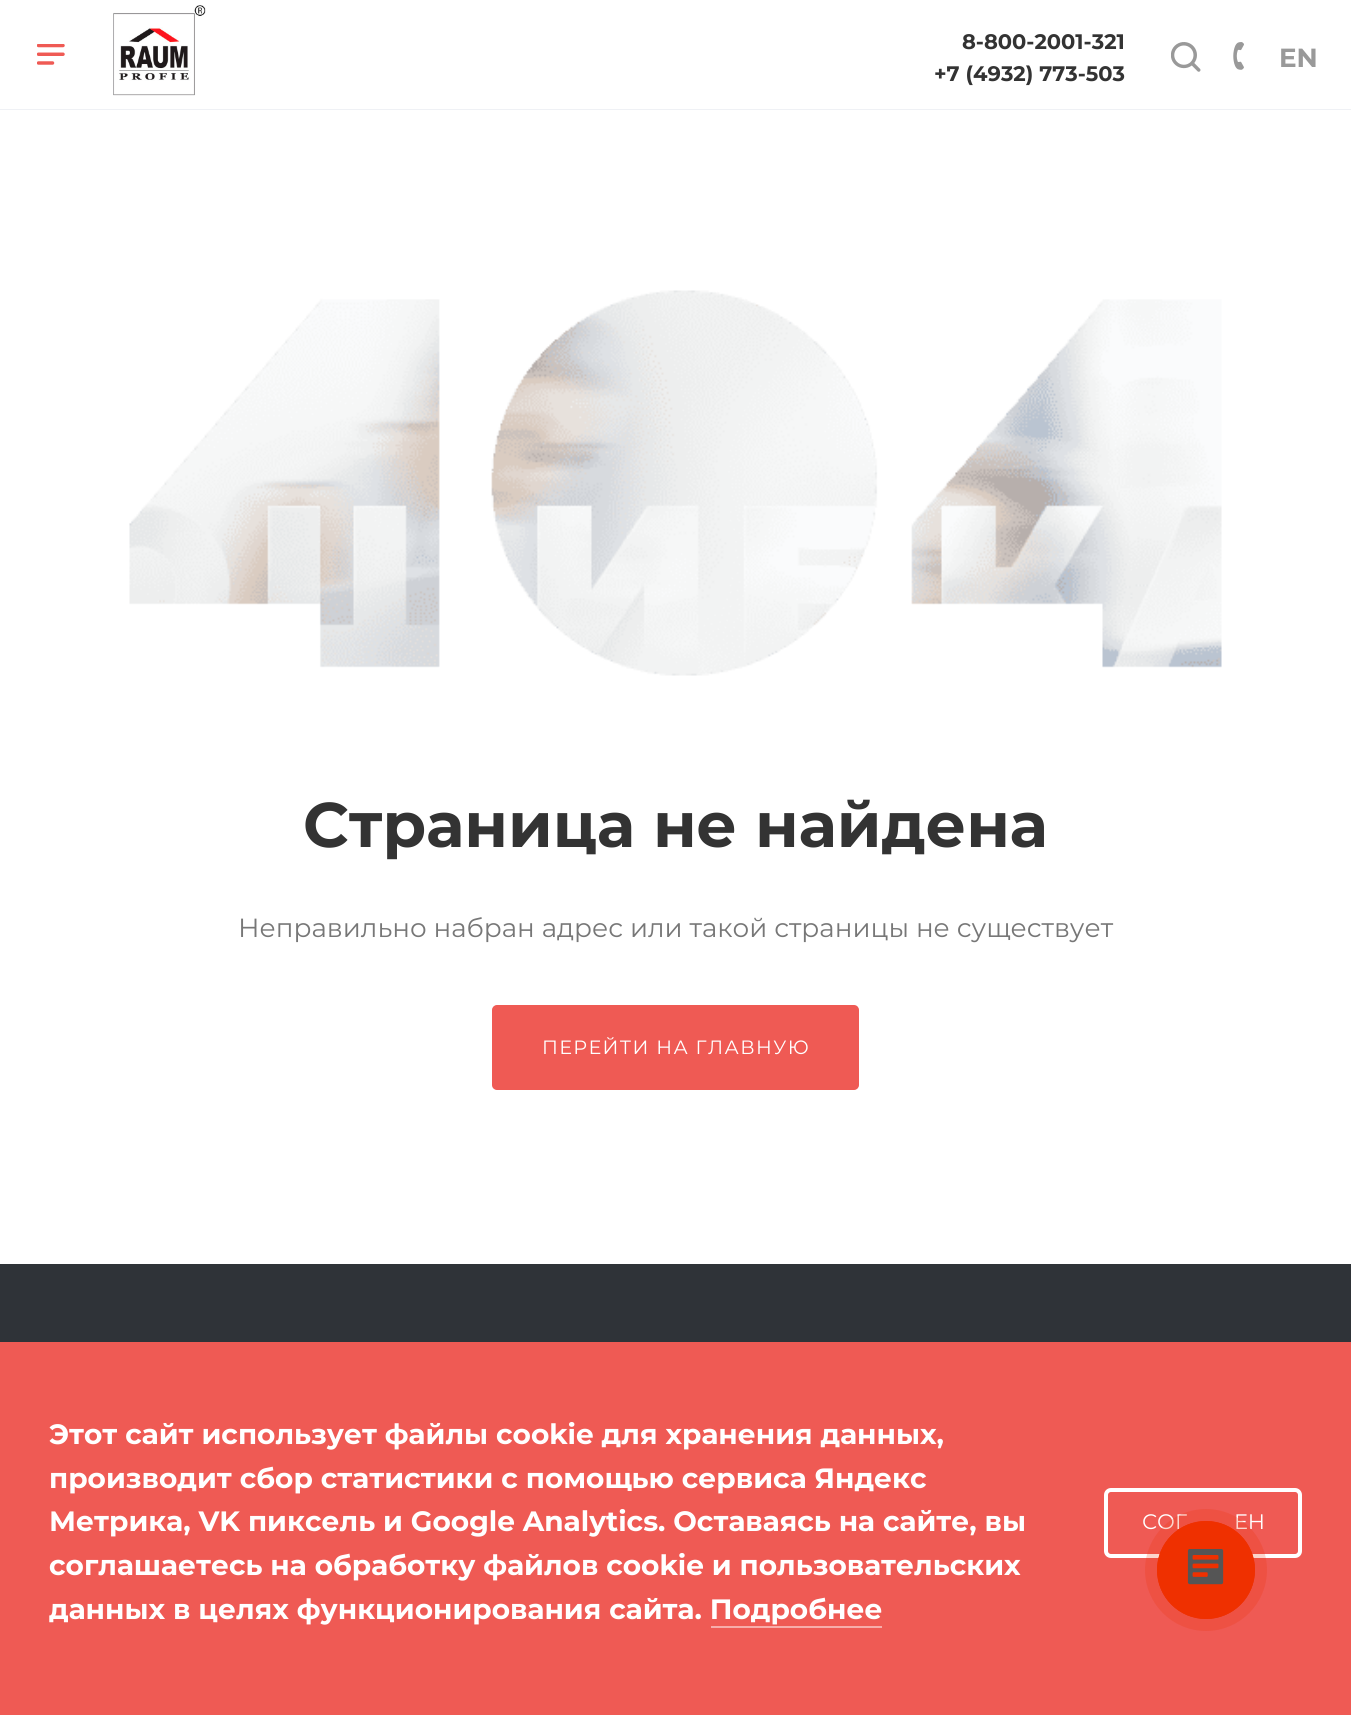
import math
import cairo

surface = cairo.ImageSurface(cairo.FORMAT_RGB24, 1351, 1715)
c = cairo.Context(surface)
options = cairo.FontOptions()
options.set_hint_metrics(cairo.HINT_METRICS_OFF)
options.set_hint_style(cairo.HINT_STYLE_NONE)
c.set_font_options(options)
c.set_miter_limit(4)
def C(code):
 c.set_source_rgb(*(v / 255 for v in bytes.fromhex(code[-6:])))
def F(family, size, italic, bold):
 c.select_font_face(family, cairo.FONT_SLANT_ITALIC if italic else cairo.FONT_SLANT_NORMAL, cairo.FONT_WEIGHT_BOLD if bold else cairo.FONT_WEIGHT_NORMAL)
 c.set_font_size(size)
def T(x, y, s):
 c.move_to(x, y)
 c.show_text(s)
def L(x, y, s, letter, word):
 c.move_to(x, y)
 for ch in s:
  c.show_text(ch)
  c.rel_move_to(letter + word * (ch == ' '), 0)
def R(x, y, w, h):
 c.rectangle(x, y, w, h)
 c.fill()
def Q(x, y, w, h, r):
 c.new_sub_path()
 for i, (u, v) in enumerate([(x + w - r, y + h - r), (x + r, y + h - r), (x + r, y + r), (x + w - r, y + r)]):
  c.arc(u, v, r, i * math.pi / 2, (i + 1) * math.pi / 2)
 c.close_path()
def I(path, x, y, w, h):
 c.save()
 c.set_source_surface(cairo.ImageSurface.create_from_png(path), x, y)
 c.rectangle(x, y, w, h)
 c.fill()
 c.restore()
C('ffffff')
c.paint()
C('eff1f5')
R(0,109,1351,1)
I('1.png',37,44,28,21)
I('2.png',113,5,93,91)
F('Montserrat',21,0,1)
C('333333')
T(962,49,'8-800-2001-321')
I('3.png',1233,42,11,28)
T(934,81,'+7 (4932) 773-503')
I('4.png',1171,42,30,30)
F('Montserrat',26.25,0,1)
C('999999')
T(1279,67,'EN')
I('5.png',129,290,1093,386)
F('Montserrat',63,0,1)
C('333333')
T(303,847,'Страница не найдена')
F('Montserrat',26.25,0,0)
C('777777')
T(238,937,'Неправильно набран адрес или такой страницы не существует')
C('ef5a54')
Q(493,1006,365,83,4)
c.fill_preserve()
c.stroke()
F('Montserrat',19.25,0,0)
C('ffffff')
L(542,1054,'ПЕРЕЙТИ НА ГЛАВНУЮ',1.4,0)
C('2f3338')
R(0,1264,1351,78)
C('ef5a54')
R(0,1342,1351,373)
F('Montserrat',28,0,1)
C('ffffff')
T(49,1444,'Этот сайт использует файлы cookie для хранения данных,')
T(49,1488,'производит сбор статистики с помощью сервиса Яндекс')
T(49,1531,'Метрика, VK пиксель и Google Analytics. Оставаясь на сайте, вы')
T(49,1575,'соглашаетесь на обработку файлов cookie и пользовательских')
T(49,1619,'данных в целях функционирования сайта. Подробнее')
C('f7adaa')
R(711,1626,171,2)
Q(1106,1490,194,66,5)
C('ffffff')
c.set_line_width(4)
c.stroke()
F('Montserrat',21,0,0)
T(1142,1529,'СОГ')
T(1234,1529,'ЕН')
c.set_source_rgba(0.937,0.188,0,0.2)
c.new_path()
c.arc(1206,1570,61,0,2 * math.pi)
c.fill()
c.arc(1206,1570,48.5,0,2 * math.pi)
C('ef3000')
c.set_line_width(1)
c.stroke()
c.arc(1206,1570,49,0,2 * math.pi)
c.fill()
I('6.png',1187,1549,37,36)
surface.write_to_png('o.png')
